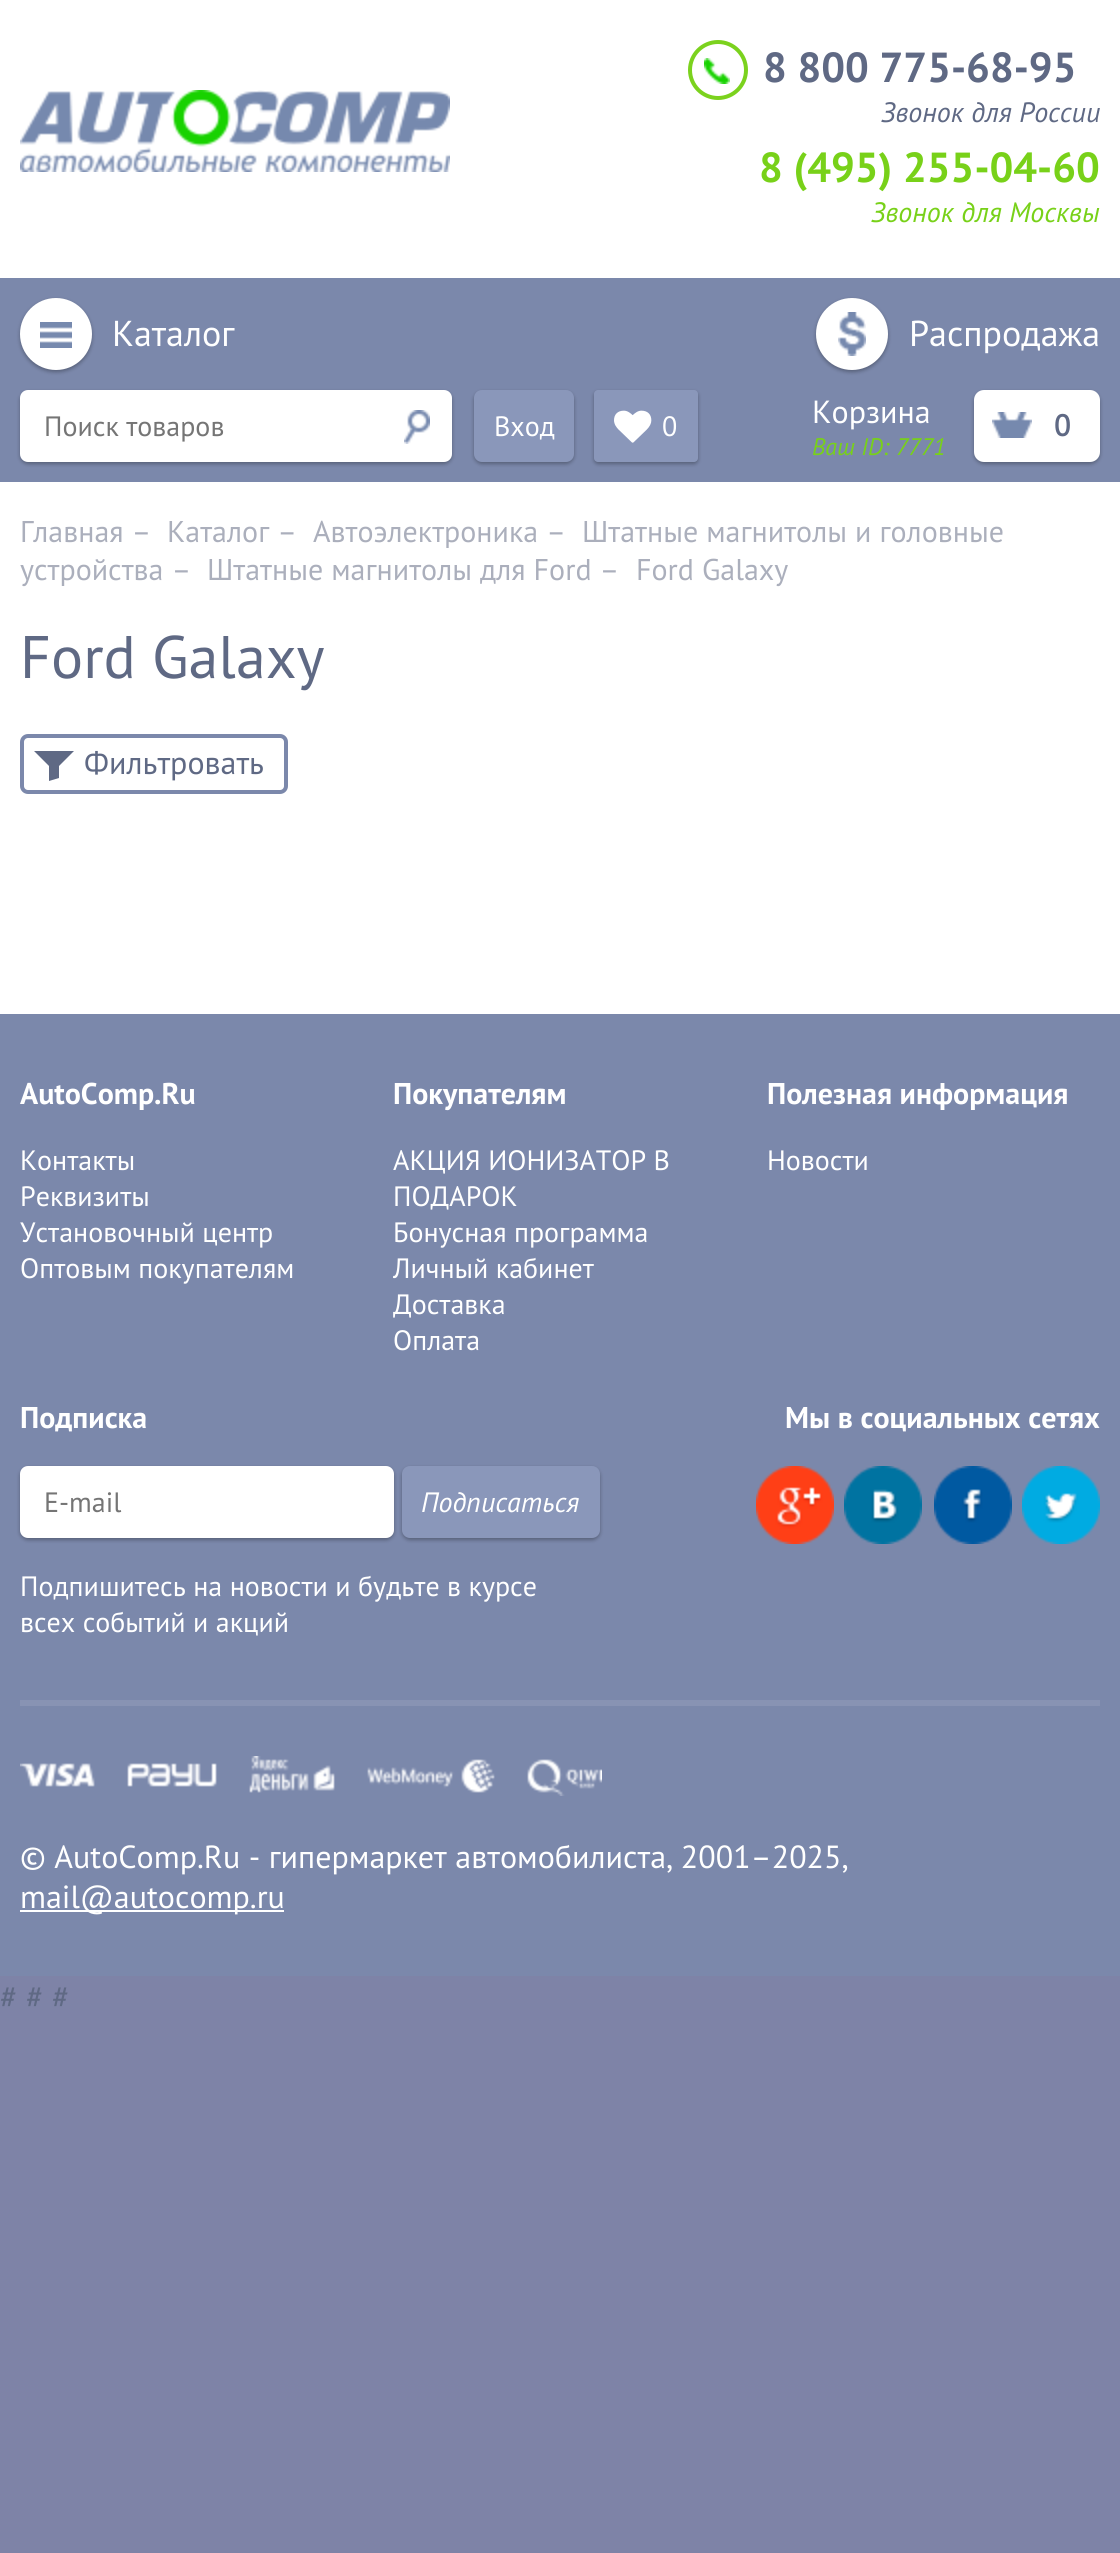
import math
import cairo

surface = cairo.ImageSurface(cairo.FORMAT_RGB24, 1120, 2553)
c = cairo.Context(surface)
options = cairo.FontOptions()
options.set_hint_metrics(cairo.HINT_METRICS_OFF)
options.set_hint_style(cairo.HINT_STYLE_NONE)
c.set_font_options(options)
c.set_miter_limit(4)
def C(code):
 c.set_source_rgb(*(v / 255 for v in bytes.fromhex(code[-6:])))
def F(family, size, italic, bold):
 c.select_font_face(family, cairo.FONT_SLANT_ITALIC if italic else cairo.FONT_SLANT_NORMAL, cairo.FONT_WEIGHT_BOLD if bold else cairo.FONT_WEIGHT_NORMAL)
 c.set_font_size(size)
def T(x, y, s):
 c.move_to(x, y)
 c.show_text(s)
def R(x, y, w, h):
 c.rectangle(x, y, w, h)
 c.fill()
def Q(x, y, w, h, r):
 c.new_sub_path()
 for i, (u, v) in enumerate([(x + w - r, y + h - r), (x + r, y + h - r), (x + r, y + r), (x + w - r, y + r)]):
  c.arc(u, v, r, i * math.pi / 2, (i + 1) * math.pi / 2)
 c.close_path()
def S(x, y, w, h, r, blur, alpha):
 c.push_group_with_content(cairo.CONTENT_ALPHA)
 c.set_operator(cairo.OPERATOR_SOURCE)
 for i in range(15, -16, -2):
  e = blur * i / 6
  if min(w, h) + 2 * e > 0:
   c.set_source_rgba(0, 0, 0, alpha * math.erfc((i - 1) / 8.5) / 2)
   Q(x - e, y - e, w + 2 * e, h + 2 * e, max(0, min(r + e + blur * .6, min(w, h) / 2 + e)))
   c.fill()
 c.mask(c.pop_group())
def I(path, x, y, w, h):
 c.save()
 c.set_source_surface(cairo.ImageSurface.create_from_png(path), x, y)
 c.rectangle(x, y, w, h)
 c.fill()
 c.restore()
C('7e83a7')
c.paint()
C('ffffff')
R(0,0,1120,1014)
I('1.png',20,90,430,82)
I('2.png',704,58,26,26)
c.arc(718,70,28,0,2 * math.pi)
C('7bd21e')
c.set_line_width(4)
c.stroke()
F('PT Sans',42,0,1)
C('5f6984')
T(763,82,'8 800 775-68-95')
F('PT Sans',28,1,0)
T(881,122,'Звонок для России')
F('PT Sans',42,0,1)
C('78d119')
T(759,182,'8 (495) 255-04-60')
F('PT Sans',28,1,0)
T(871,222,'Звонок для Москвы')
C('7b88ab')
R(0,278,1120,204)
C('000000')
S(20,300,72,72,36,2,.3)
C('ffffff')
c.arc(56,334,36,0,2 * math.pi)
c.fill()
I('3.png',40,322,32,26)
F('PT Sans',36,0,0)
T(112,346,'Каталог')
C('000000')
S(816,300,72,72,36,2,.3)
C('ffffff')
c.arc(852,334,36,0,2 * math.pi)
c.fill()
I('4.png',838,312,28,44)
T(909,346,'Распродажа')
C('000000')
S(20,392,432,72,8,2,.3)
C('ffffff')
Q(20,390,432,72,8)
c.fill()
F('PT Sans',28,0,0)
C('757575')
T(44,436,'Поиск товаров')
I('5.png',404,410,26,34)
C('000000')
S(474,392,100,72,8,2,.3)
C('8a97ba')
Q(474,390,100,72,8)
c.fill()
C('ffffff')
T(494,436,'Вход')
C('000000')
S(594,392,104,72,4,2,.3)
C('8a97ba')
Q(594,390,104,72,4)
c.fill()
I('6.png',614,410,38,33)
C('ffffff')
T(662,436,'0')
F('PT Sans',32,0,0)
T(812,423,'Корзина')
F('PT Sans',24,1,0)
C('78d119')
T(812,455,'Ваш ID: 7771')
C('000000')
S(974,392,126,72,10,2,.3)
C('ffffff')
Q(974,390,126,72,10)
c.fill()
I('7.png',992,412,40,26)
F('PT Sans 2',30,0,1)
C('5f6984')
T(1054,436,'0')
F('PT Sans',30,0,0)
C('abafbc')
T(20,542,'Главная –')
T(167,542,'Каталог –')
T(313,542,'Автоэлектроника –')
T(582,542,'Штатные магнитолы и головные')
T(20,580,'устройства –')
T(207,580,'Штатные магнитолы для Ford –')
T(636,580,'Ford Galaxy')
F('PT Sans',60,0,0)
C('5f6984')
T(20,678,'Ford Galaxy')
Q(22,736,264,56,6)
C('7b88ab')
c.stroke()
C('5f6984')
c.new_path()
c.move_to(34,751)
c.line_to(49,766)
c.line_to(49,781)
c.line_to(59,778)
c.line_to(59,766)
c.line_to(74,751)
c.close_path()
c.fill()
F('PT Sans',32,0,0)
T(84,774,'Фильтровать')
C('7b88ab')
R(0,1014,1120,962)
F('PT Sans',30,0,1)
C('ffffff')
T(20,1104,'AutoComp.Ru')
F('PT Sans',28,0,0)
T(20,1170,'Контакты')
T(20,1206,'Реквизиты')
T(20,1242,'Установочный центр')
T(20,1278,'Оптовым покупателям')
F('PT Sans',30,0,1)
T(393,1104,'Покупателям')
F('PT Sans',28,0,0)
T(393,1170,'АКЦИЯ ИОНИЗАТОР В')
T(393,1206,'ПОДАРОК')
T(393,1242,'Бонусная программа')
T(393,1278,'Личный кабинет')
T(393,1314,'Доставка')
T(393,1350,'Оплата')
F('PT Sans',30,0,1)
T(767,1104,'Полезная информация')
F('PT Sans',28,0,0)
T(767,1170,'Новости')
F('PT Sans',30,0,1)
T(20,1428,'Подписка')
C('000000')
S(20,1468,374,72,8,2,.3)
C('ffffff')
Q(20,1466,374,72,8)
c.fill()
F('PT Sans',28,0,0)
C('757575')
T(44,1512,'E-mail')
C('000000')
S(402,1468,198,72,8,2,.3)
C('8a97ba')
Q(402,1466,198,72,8)
c.fill()
F('PT Sans',28,1,0)
C('ffffff')
T(421,1512,'Подписаться')
F('PT Sans',28,0,0)
T(20,1596,'Подпишитесь на новости и будьте в курсе')
T(20,1632,'всех событий и акций')
F('PT Sans',30,0,1)
T(785,1428,'Мы в социальных сетях')
I('8.png',756,1466,78,78)
I('9.png',844,1466,78,78)
I('10.png',934,1466,78,78)
I('11.png',1022,1466,78,78)
C('8893b3')
R(20,1700,1080,6)
I('12.png',20,1756,582,40)
F('PT Sans',32,0,0)
C('ffffff')
T(20,1868,'© AutoComp.Ru - гипермаркет автомобилиста, 2001–2025,')
R(20,1910,264,2)
T(20,1908,'mail@autocomp.ru')
C('5f6984')
T(0,2008,'# # #')
surface.write_to_png('o.png')
